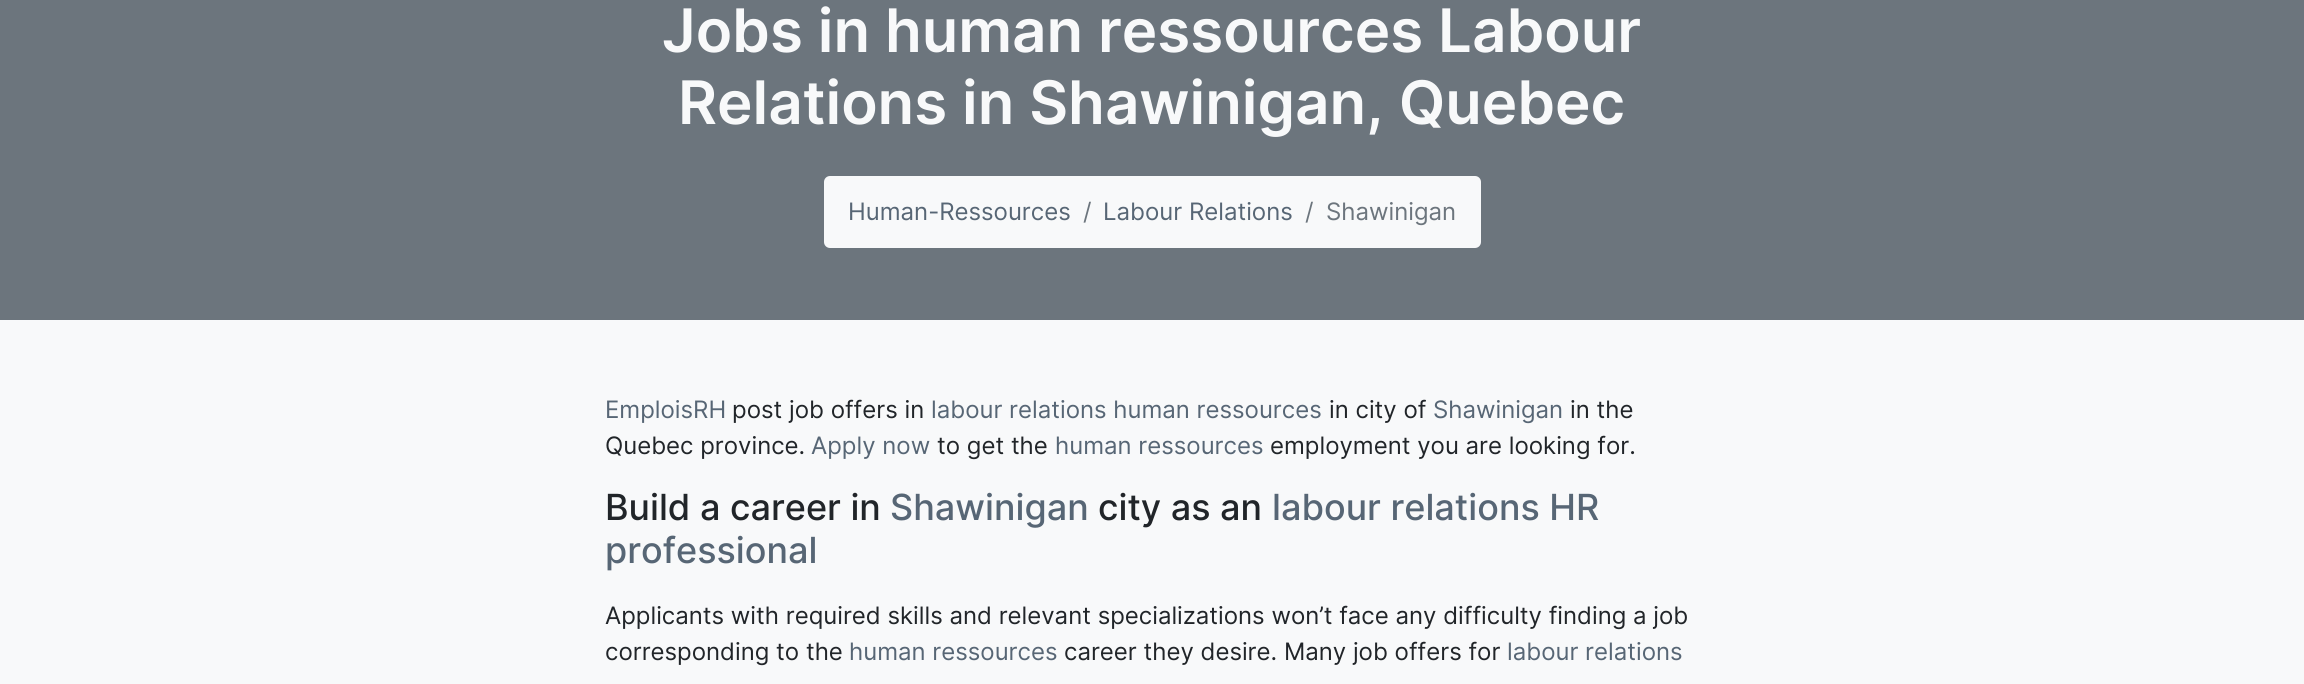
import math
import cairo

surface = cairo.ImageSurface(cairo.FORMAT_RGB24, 2304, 684)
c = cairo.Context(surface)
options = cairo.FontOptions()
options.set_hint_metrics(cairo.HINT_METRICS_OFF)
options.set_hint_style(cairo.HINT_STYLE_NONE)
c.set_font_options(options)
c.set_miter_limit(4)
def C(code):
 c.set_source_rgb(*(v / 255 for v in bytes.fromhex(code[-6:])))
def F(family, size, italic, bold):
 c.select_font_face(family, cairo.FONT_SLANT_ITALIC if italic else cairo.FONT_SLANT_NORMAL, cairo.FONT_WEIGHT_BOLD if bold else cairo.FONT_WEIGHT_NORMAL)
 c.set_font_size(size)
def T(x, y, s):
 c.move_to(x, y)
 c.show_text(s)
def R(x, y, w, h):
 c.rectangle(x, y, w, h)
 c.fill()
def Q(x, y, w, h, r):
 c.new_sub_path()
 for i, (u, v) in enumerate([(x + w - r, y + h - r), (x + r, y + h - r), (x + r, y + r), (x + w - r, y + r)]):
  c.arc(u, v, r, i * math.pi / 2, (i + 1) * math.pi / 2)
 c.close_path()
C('6c757d')
c.paint()
F('Inter SemiBold',60,0,0)
C('f8f9fa')
T(662,52,'Jobs in human ressources Labour')
T(678,124,'Relations in Shawinigan, Quebec')
Q(824,176,657,72,6)
c.fill()
F('Inter',24,0,0)
C('576675')
T(848,220,'Human-Ressources')
C('6c757d')
T(1083,220,'/')
C('576675')
T(1103,220,'Labour Relations')
C('6c757d')
T(1305,220,'/')
T(1326,220,'Shawinigan')
C('f8f9fa')
R(0,320,2304,364)
C('576675')
T(605,418,'EmploisRH')
C('212529')
T(732,418,'post job offers in')
C('576675')
T(931,418,'labour relations human ressources')
C('212529')
T(1329,418,'in city of')
C('576675')
T(1433,418,'Shawinigan')
C('212529')
T(1570,418,'in the')
T(605,454,'Quebec province.')
C('576675')
T(811,454,'Apply now')
C('212529')
T(937,454,'to get the')
C('576675')
T(1055,454,'human ressources')
C('212529')
T(1270,454,'employment you are looking for.')
F('Inter Medium',36,0,0)
T(605,520,'Build a career in')
C('576675')
T(890,520,'Shawinigan')
C('212529')
T(1098,520,'city as an')
C('576675')
T(1272,520,'labour relations HR')
T(605,563,'professional')
F('Inter',24,0,0)
C('212529')
T(605,624,'Applicants with required skills and relevant specializations won’t face any difficulty finding a job')
T(605,660,'corresponding to the')
C('576675')
T(849,660,'human ressources')
C('212529')
T(1064,660,'career they desire. Many job offers for')
C('576675')
T(1507,660,'labour relations')
surface.write_to_png('o.png')
